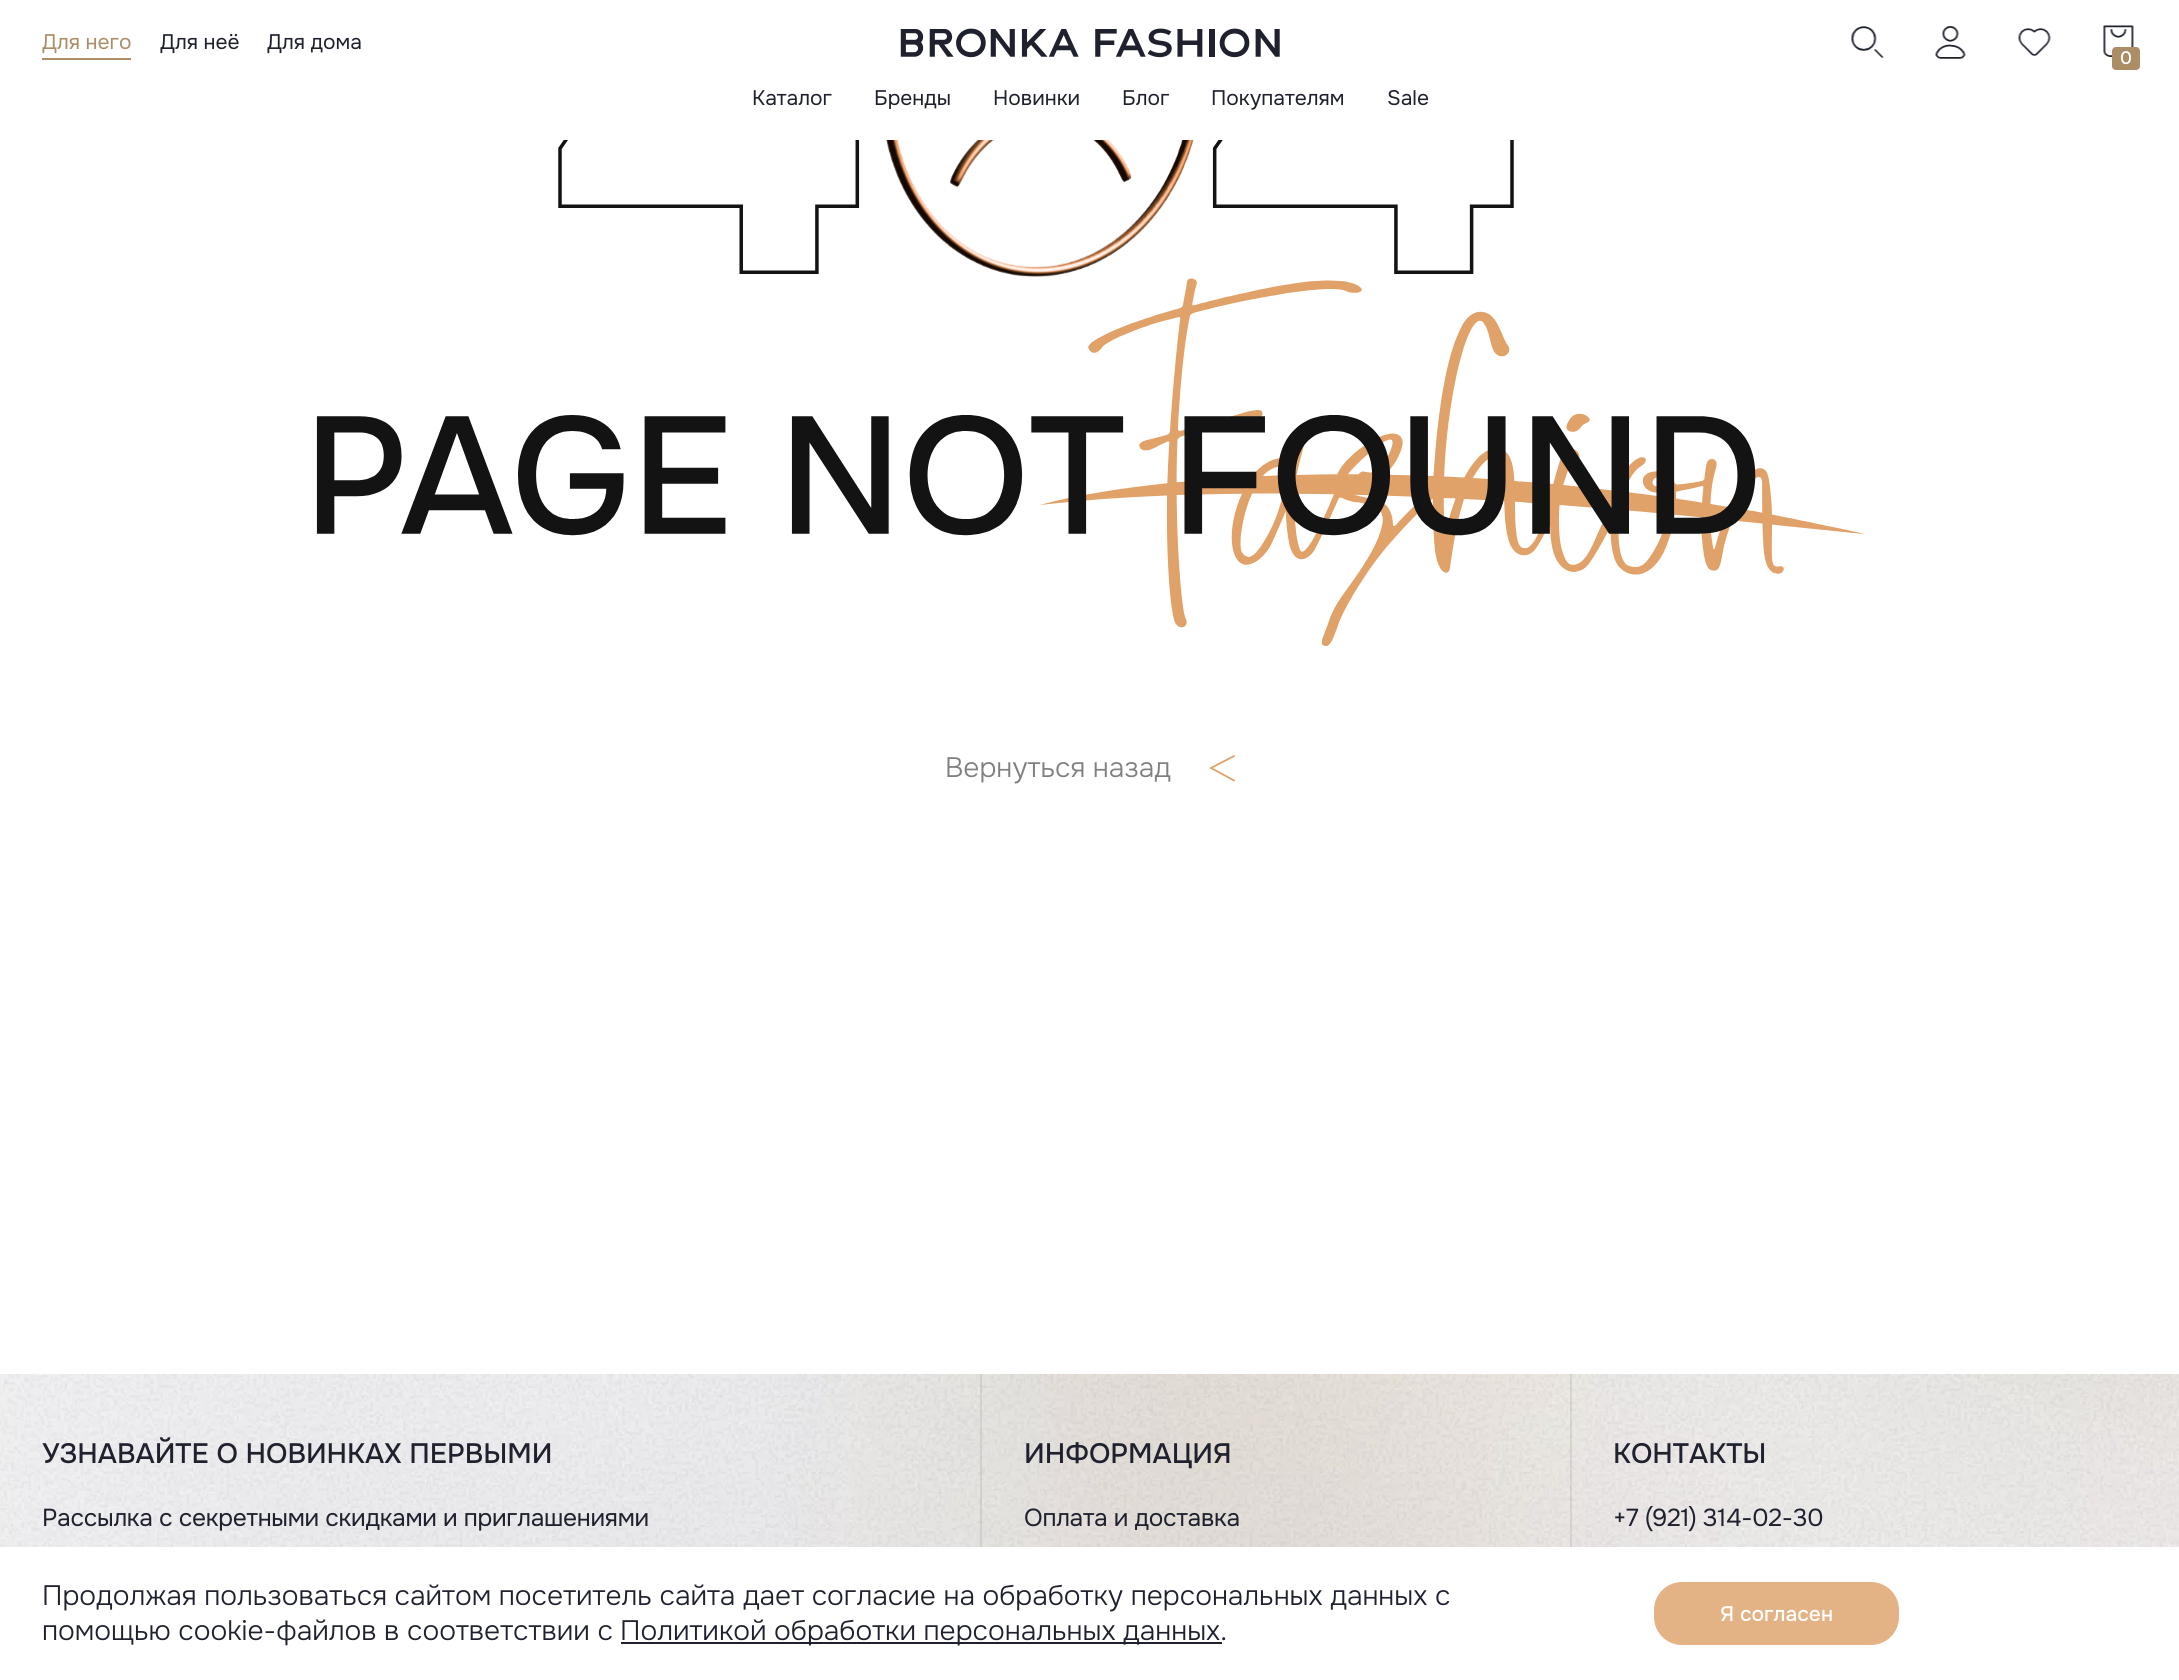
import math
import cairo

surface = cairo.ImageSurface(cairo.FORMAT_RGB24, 2179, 1680)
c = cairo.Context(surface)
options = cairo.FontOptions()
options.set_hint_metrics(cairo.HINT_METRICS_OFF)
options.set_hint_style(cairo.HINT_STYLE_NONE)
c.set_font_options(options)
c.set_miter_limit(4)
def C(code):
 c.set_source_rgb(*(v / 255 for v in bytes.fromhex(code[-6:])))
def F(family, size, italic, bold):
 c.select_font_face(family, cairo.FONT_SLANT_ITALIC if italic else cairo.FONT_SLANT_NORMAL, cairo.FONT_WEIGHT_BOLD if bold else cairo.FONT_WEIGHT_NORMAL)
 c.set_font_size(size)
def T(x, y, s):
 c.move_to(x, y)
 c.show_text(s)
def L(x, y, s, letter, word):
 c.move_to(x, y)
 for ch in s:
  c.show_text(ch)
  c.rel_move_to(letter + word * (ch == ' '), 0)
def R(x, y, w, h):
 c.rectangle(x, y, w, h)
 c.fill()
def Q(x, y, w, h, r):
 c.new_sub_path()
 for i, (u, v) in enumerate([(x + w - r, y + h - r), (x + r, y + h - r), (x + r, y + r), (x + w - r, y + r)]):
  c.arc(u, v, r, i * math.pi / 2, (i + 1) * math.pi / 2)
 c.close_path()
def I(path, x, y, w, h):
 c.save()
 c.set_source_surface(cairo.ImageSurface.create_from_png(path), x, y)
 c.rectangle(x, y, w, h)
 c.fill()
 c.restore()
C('ffffff')
c.paint()
F('Onest',21,0,0)
C('ab8e66')
T(42,49,'Для него')
R(42,58,89,2)
C('1f222e')
T(160,49,'Для неё')
T(267,49,'Для дома')
I('1.png',900,28,380,30)
I('2.png',1851,26,33,32)
I('3.png',1935,26,31,33)
I('4.png',2018,28,33,28)
I('5.png',2103,25,31,32)
C('ab8e66')
Q(2112,47,28,23,4)
c.fill()
F('Onest Medium',18,0,0)
C('ffffff')
T(2120,64,'0')
F('Onest',21,0,0)
C('1f222e')
T(752,105,'Каталог')
T(874,105,'Бренды')
T(993,105,'Новинки')
T(1122,105,'Блог')
T(1211,105,'Покупателям')
T(1387,105,'Sale')
I('6.png',316,140,1549,506)
F('Onest Light',28,0,0)
C('7f7f7f')
T(945,777,'Вернуться назад')
c.new_path()
c.move_to(1234,780.5)
c.line_to(1211,768)
c.line_to(1234,756)
C('e0a269')
c.set_line_width(1.8)
c.set_line_cap(cairo.LINE_CAP_ROUND)
c.stroke()
I('7.png',0,1374,2179,173)
F('Onest Medium',28,0,0)
C('1f222e')
T(42,1463,'УЗНАВАЙТЕ О НОВИНКАХ ПЕРВЫМИ')
F('Onest',24.5,0,0)
L(42,1526,'Рассылка с секретными скидками и приглашениями',-.25,0)
c.set_source_rgba(0.569,0.557,0.545,0.2)
R(980,1374,2,173)
F('Onest Medium',28,0,0)
C('1f222e')
T(1024,1463,'ИНФОРМАЦИЯ')
F('Onest',24.5,0,0)
L(1024,1526,'Оплата и доставка',-.25,0)
c.set_source_rgba(0.569,0.557,0.545,0.2)
R(1570,1374,2,173)
F('Onest Medium',28,0,0)
C('1f222e')
T(1613,1463,'КОНТАКТЫ')
F('Onest',24.5,0,0)
L(1613,1526,'+7 (921) 314-02-30',-.25,0)
F('Onest Light',28,0,0)
T(42,1605,'Продолжая пользоваться сайтом посетитель сайта дает согласие на обработку персональных данных с')
T(42,1640,'помощью cookie-файлов в соответствии с')
R(621,1642,601,2)
T(620,1640,'Политикой обработки персональных данных.')
C('e4b385')
Q(1654,1582,245,63,28)
c.fill()
F('Onest Medium',21,0,0)
C('ffffff')
T(1720,1621,'Я согласен')
surface.write_to_png('o.png')
